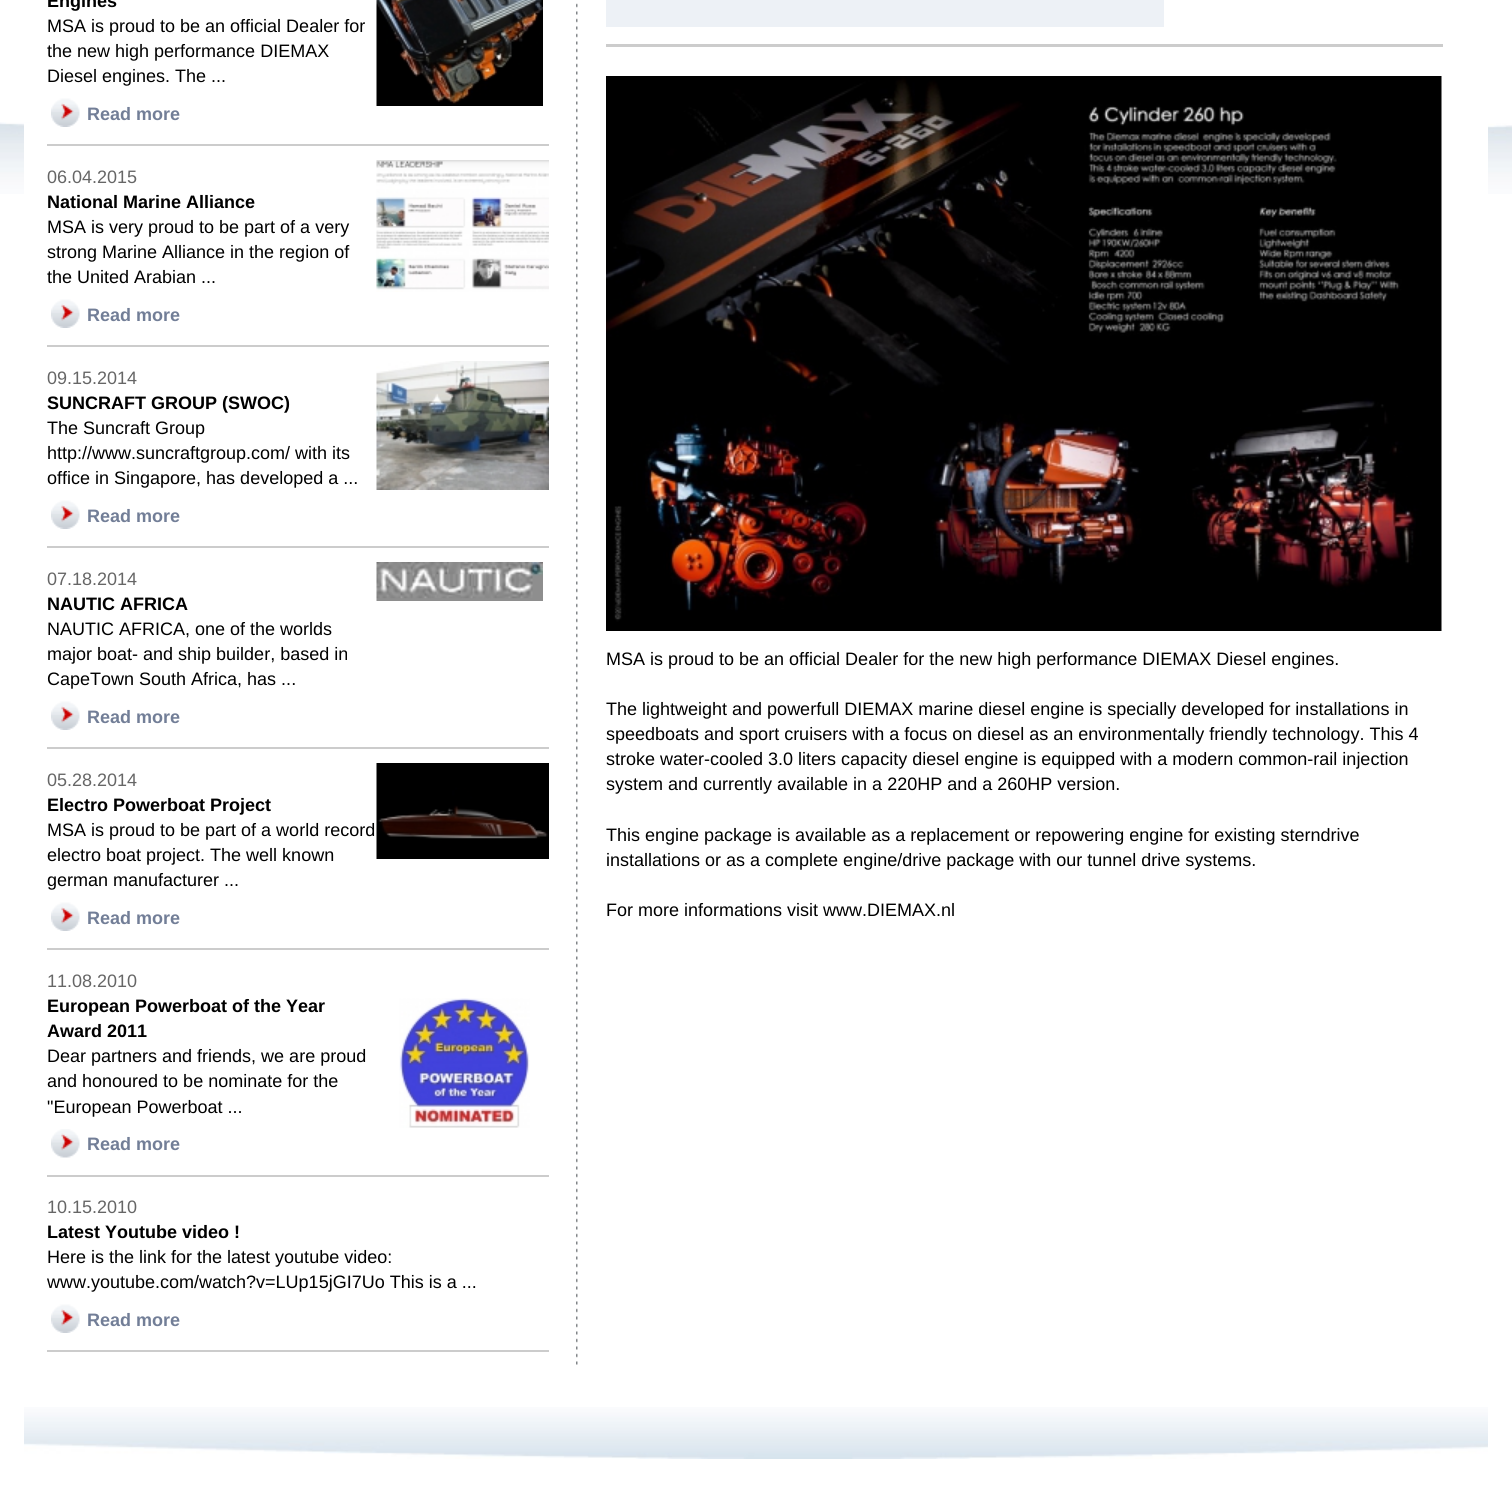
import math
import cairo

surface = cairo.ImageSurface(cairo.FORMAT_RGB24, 1512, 1492)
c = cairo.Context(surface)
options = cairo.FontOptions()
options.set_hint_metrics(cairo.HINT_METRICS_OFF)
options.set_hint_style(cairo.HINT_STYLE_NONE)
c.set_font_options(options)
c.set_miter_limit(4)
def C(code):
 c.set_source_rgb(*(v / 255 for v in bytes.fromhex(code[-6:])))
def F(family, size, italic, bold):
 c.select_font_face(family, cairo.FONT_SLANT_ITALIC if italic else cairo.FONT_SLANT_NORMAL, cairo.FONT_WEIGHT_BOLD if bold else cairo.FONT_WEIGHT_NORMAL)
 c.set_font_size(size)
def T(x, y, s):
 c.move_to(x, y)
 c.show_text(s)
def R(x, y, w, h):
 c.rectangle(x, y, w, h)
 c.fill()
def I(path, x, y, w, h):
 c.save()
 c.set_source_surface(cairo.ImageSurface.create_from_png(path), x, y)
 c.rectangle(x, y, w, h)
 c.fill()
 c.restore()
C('ffffff')
c.paint()
I('1.png',0,122,1512,72)
C('ffffff')
R(24,123,1464,71)
I('2.png',576,3,2,1362)
C('cccccc')
R(47,144,502,2)
F('Liberation Sans',18,0,1)
C('000000')
T(47,7,'Engines')
F('Liberation Sans',18,0,0)
T(47,32,'MSA is proud to be an official Dealer for')
T(47,57,'the new high performance DIEMAX')
T(47,82,'Diesel engines. The ...')
I('3.png',51,98,29,29)
F('Liberation Sans',18,0,1)
C('727e97')
T(87,120,'Read more')
I('4.png',376,0,167,106)
C('cccccc')
R(47,345,502,2)
F('Liberation Sans',18,0,0)
C('666666')
T(47,183,'06.04.2015')
F('Liberation Sans',18,0,1)
C('000000')
T(47,208,'National Marine Alliance')
F('Liberation Sans',18,0,0)
T(47,233,'MSA is very proud to be part of a very')
T(47,258,'strong Marine Alliance in the region of')
T(47,283,'the United Arabian ...')
I('3.png',51,299,29,29)
F('Liberation Sans',18,0,1)
C('727e97')
T(87,321,'Read more')
I('5.png',376,160,173,132)
C('cccccc')
R(47,546,502,2)
F('Liberation Sans',18,0,0)
C('666666')
T(47,384,'09.15.2014')
F('Liberation Sans',18,0,1)
C('000000')
T(47,409,'SUNCRAFT GROUP (SWOC)')
F('Liberation Sans',18,0,0)
T(47,434,'The Suncraft Group')
T(47,459,'http://www.suncraftgroup.com/ with its')
T(47,484,'office in Singapore, has developed a ...')
I('3.png',51,500,29,29)
F('Liberation Sans',18,0,1)
C('727e97')
T(87,522,'Read more')
I('6.png',376,361,173,129)
C('cccccc')
R(47,747,502,2)
F('Liberation Sans',18,0,0)
C('666666')
T(47,585,'07.18.2014')
F('Liberation Sans',18,0,1)
C('000000')
T(47,610,'NAUTIC AFRICA')
F('Liberation Sans',18,0,0)
T(47,635,'NAUTIC AFRICA, one of the worlds')
T(47,660,'major boat- and ship builder, based in')
T(47,685,'CapeTown South Africa, has ...')
I('3.png',51,701,29,29)
F('Liberation Sans',18,0,1)
C('727e97')
T(87,723,'Read more')
I('7.png',376,562,167,39)
C('cccccc')
R(47,948,502,2)
F('Liberation Sans',18,0,0)
C('666666')
T(47,786,'05.28.2014')
F('Liberation Sans',18,0,1)
C('000000')
T(47,811,'Electro Powerboat Project')
F('Liberation Sans',18,0,0)
T(47,836,'MSA is proud to be part of a world record')
T(47,861,'electro boat project. The well known')
T(47,886,'german manufacturer ...')
I('3.png',51,902,29,29)
F('Liberation Sans',18,0,1)
C('727e97')
T(87,924,'Read more')
I('8.png',376,763,173,96)
C('cccccc')
R(47,1175,502,2)
F('Liberation Sans',18,0,0)
C('666666')
T(47,987,'11.08.2010')
F('Liberation Sans',18,0,1)
C('000000')
T(47,1012,'European Powerboat of the Year')
T(47,1037,'Award 2011')
F('Liberation Sans',18,0,0)
T(47,1062,'Dear partners and friends, we are proud')
T(47,1087,'and honoured to be nominate for the')
T(47,1113,'"European Powerboat ...')
I('9.png',51,1129,29,29)
F('Liberation Sans',18,0,1)
C('727e97')
T(87,1150,'Read more')
I('10.png',399,998,131,130)
C('cccccc')
R(47,1350,502,2)
F('Liberation Sans',18,0,0)
C('666666')
T(47,1213,'10.15.2010')
F('Liberation Sans',18,0,1)
C('000000')
T(47,1238,'Latest Youtube video !')
F('Liberation Sans',18,0,0)
T(47,1263,'Here is the link for the latest youtube video:')
T(47,1288,'www.youtube.com/watch?v=LUp15jGI7Uo This is a ...')
I('3.png',51,1304,29,29)
F('Liberation Sans',18,0,1)
C('727e97')
T(87,1326,'Read more')
C('edf1f6')
R(606,0,558,27)
C('cccccc')
R(606,44,837,3)
I('11.png',606,76,836,555)
F('Liberation Sans',18,0,0)
C('000000')
T(606,665,'MSA is proud to be an official Dealer for the new high performance DIEMAX Diesel engines.')
T(606,715,'The lightweight and powerfull DIEMAX marine diesel engine is specially developed for installations in')
T(606,740,'speedboats and sport cruisers with a focus on diesel as an environmentally friendly technology. This 4')
T(606,765,'stroke water-cooled 3.0 liters capacity diesel engine is equipped with a modern common-rail injection')
T(606,790,'system and currently available in a 220HP and a 260HP version.')
T(606,841,'This engine package is available as a replacement or repowering engine for existing sterndrive')
T(606,866,'installations or as a complete engine/drive package with our tunnel drive systems.')
T(606,916,'For more informations visit www.DIEMAX.nl')
I('12.png',24,1407,1464,52)
surface.write_to_png('o.png')
